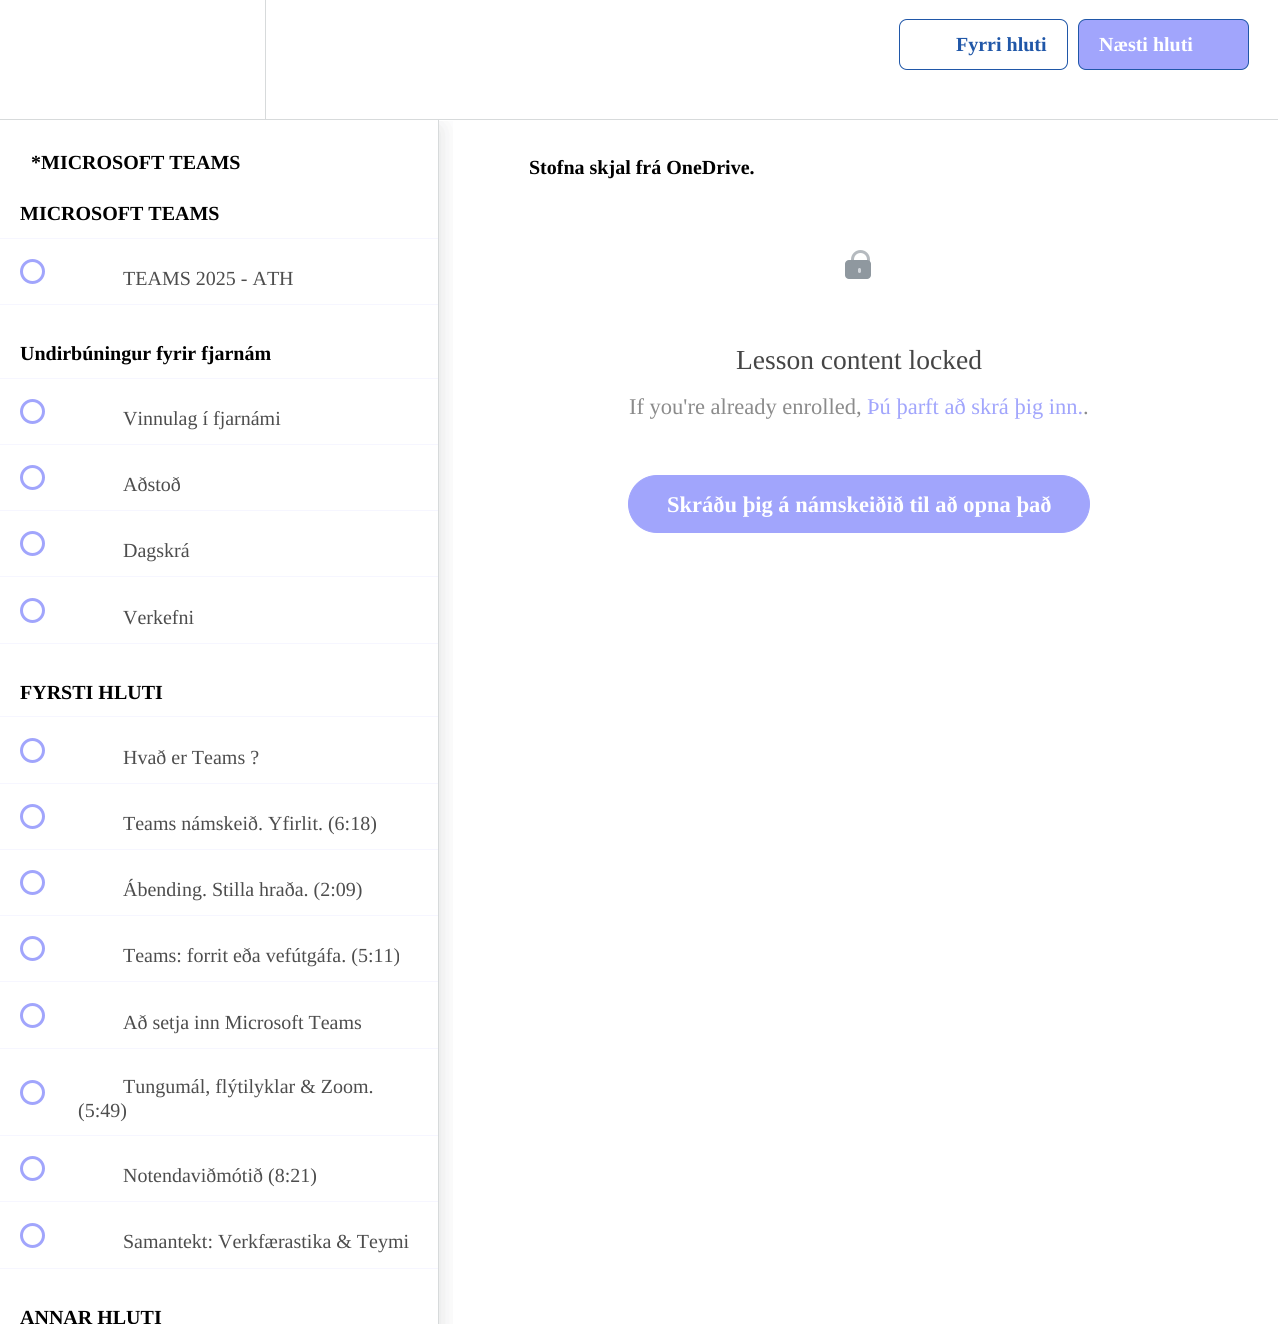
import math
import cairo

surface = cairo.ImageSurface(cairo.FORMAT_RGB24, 1278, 1324)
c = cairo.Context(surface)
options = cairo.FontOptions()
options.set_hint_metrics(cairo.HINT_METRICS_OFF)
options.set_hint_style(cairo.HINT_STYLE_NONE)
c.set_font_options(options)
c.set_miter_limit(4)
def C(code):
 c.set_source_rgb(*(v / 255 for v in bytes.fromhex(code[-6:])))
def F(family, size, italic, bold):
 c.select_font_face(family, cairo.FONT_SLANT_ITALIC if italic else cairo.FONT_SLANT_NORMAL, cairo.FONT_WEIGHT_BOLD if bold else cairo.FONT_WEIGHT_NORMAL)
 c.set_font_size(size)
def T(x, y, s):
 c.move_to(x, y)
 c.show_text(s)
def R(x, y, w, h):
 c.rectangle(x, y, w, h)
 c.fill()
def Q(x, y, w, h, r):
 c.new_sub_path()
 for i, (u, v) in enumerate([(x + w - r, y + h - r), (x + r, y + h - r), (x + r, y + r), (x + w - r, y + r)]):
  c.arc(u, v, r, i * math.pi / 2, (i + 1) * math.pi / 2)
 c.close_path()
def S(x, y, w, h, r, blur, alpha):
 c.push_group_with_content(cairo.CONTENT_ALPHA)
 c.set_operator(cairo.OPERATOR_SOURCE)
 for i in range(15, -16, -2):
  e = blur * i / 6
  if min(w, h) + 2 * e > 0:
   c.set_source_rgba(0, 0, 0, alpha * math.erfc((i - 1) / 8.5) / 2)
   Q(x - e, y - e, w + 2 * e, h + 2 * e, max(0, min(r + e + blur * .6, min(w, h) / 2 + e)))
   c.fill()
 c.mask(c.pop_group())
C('ffffff')
c.paint()
c.save()
c.rectangle(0,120,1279,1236)
c.clip()
c.rectangle(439,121,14,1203)
c.clip()
C('20272d')
S(0,128,439,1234,0,12.5,.15)
c.restore()
C('d7dadb')
R(0,119,1278,1)
R(265,0,1,119)
Q(899.5,19.5,168,50,7.5)
C('2057a8')
c.set_line_width(1)
c.stroke()
F('Liberation Serif',20,0,1)
T(956,51,'Fyrri hluti')
C('a1a5fc')
Q(1078.5,19.5,170,50,7.5)
c.fill_preserve()
C('2057a8')
c.stroke()
C('ffffff')
T(1099,51,'Næsti hluti')
C('d7dadb')
R(438,120,1,1204)
C('000000')
T(31,169,'*MICROSOFT TEAMS')
C('f6f6ff')
R(0,238,438,1)
C('000000')
T(20,220,'MICROSOFT TEAMS')
C('f6f6ff')
R(0,304,438,1)
c.new_path()
c.arc(32.5,271.5,11,0,2 * math.pi)
C('a1a5fc')
c.set_line_width(3)
c.stroke()
F('Liberation Serif',20,0,0)
C('4d4d4d')
T(123,285,'TEAMS 2025 - ATH')
C('f6f6ff')
R(0,378,438,1)
F('Liberation Serif',20,0,1)
C('000000')
T(20,360,'Undirbúningur fyrir fjarnám')
C('f6f6ff')
R(0,444,438,1)
c.new_path()
c.arc(32.5,411.5,11,0,2 * math.pi)
C('a1a5fc')
c.stroke()
F('Liberation Serif',20,0,0)
C('4d4d4d')
T(123,425,'Vinnulag í fjarnámi')
C('f6f6ff')
R(0,510,438,1)
c.new_path()
c.arc(32.5,477.5,11,0,2 * math.pi)
C('a1a5fc')
c.stroke()
C('4d4d4d')
T(123,491,'Aðstoð')
C('f6f6ff')
R(0,576,438,1)
c.new_path()
c.arc(32.5,543.5,11,0,2 * math.pi)
C('a1a5fc')
c.stroke()
C('4d4d4d')
T(123,557,'Dagskrá')
C('f6f6ff')
R(0,643,438,1)
c.new_path()
c.arc(32.5,610.5,11,0,2 * math.pi)
C('a1a5fc')
c.stroke()
C('4d4d4d')
T(123,624,'Verkefni')
C('f6f6ff')
R(0,716,438,1)
F('Liberation Serif',20,0,1)
C('000000')
T(20,699,'FYRSTI HLUTI')
C('f6f6ff')
R(0,783,438,1)
c.new_path()
c.arc(32.5,750.5,11,0,2 * math.pi)
C('a1a5fc')
c.stroke()
F('Liberation Serif',20,0,0)
C('4d4d4d')
T(123,764,'Hvað er Teams ?')
C('f6f6ff')
R(0,849,438,1)
c.new_path()
c.arc(32.5,816.5,11,0,2 * math.pi)
C('a1a5fc')
c.stroke()
C('4d4d4d')
T(123,830,'Teams námskeið. Yfirlit. (6:18)')
C('f6f6ff')
R(0,915,438,1)
c.new_path()
c.arc(32.5,882.5,11,0,2 * math.pi)
C('a1a5fc')
c.stroke()
C('4d4d4d')
T(123,896,'Ábending. Stilla hraða. (2:09)')
C('f6f6ff')
R(0,981,438,1)
c.new_path()
c.arc(32.5,948.5,11,0,2 * math.pi)
C('a1a5fc')
c.stroke()
C('4d4d4d')
T(123,962,'Teams: forrit eða vefútgáfa. (5:11)')
C('f6f6ff')
R(0,1048,438,1)
c.new_path()
c.arc(32.5,1015.5,11,0,2 * math.pi)
C('a1a5fc')
c.stroke()
C('4d4d4d')
T(123,1029,'Að setja inn Microsoft Teams')
C('f6f6ff')
R(0,1135,438,1)
c.new_path()
c.arc(32.5,1092.5,11,0,2 * math.pi)
C('a1a5fc')
c.stroke()
C('4d4d4d')
T(123,1093,'Tungumál, flýtilyklar & Zoom.')
T(78,1117,'(5:49)')
C('f6f6ff')
R(0,1201,438,1)
c.new_path()
c.arc(32.5,1168.5,11,0,2 * math.pi)
C('a1a5fc')
c.stroke()
C('4d4d4d')
T(123,1182,'Notendaviðmótið (8:21)')
C('f6f6ff')
R(0,1268,438,1)
c.new_path()
c.arc(32.5,1235.5,11,0,2 * math.pi)
C('a1a5fc')
c.stroke()
C('4d4d4d')
T(123,1248,'Samantekt: Verkfærastika & Teymi')
F('Liberation Serif',20,0,1)
C('000000')
T(20,1324,'ANNAR HLUTI')
T(529,174,'Stofna skjal frá OneDrive.')
Q(852.5,251.5,16,25,8)
C('b5babf')
c.stroke()
C('8f989f')
Q(845,260,26,19,4)
c.fill()
C('d3d7dc')
Q(858,268,3,5,1.5)
c.fill()
F('Liberation Serif',27.5,0,0)
C('454545')
T(736,369,'Lesson content locked')
F('Liberation Serif',22.5,0,0)
C('8b8b8b')
T(629,414,'If you\'re already enrolled,')
C('a1a5fc')
T(867,414,'Þú þarft að skrá þig inn.')
C('8b8b8b')
T(1083,414,'.')
C('a1a5fc')
Q(628.5,475.5,461,57,28.5)
c.fill_preserve()
c.set_line_width(1)
c.stroke()
F('Liberation Serif',22.5,0,1)
C('ffffff')
T(667,512,'Skráðu þig á námskeiðið til að opna það')
surface.write_to_png('o.png')
